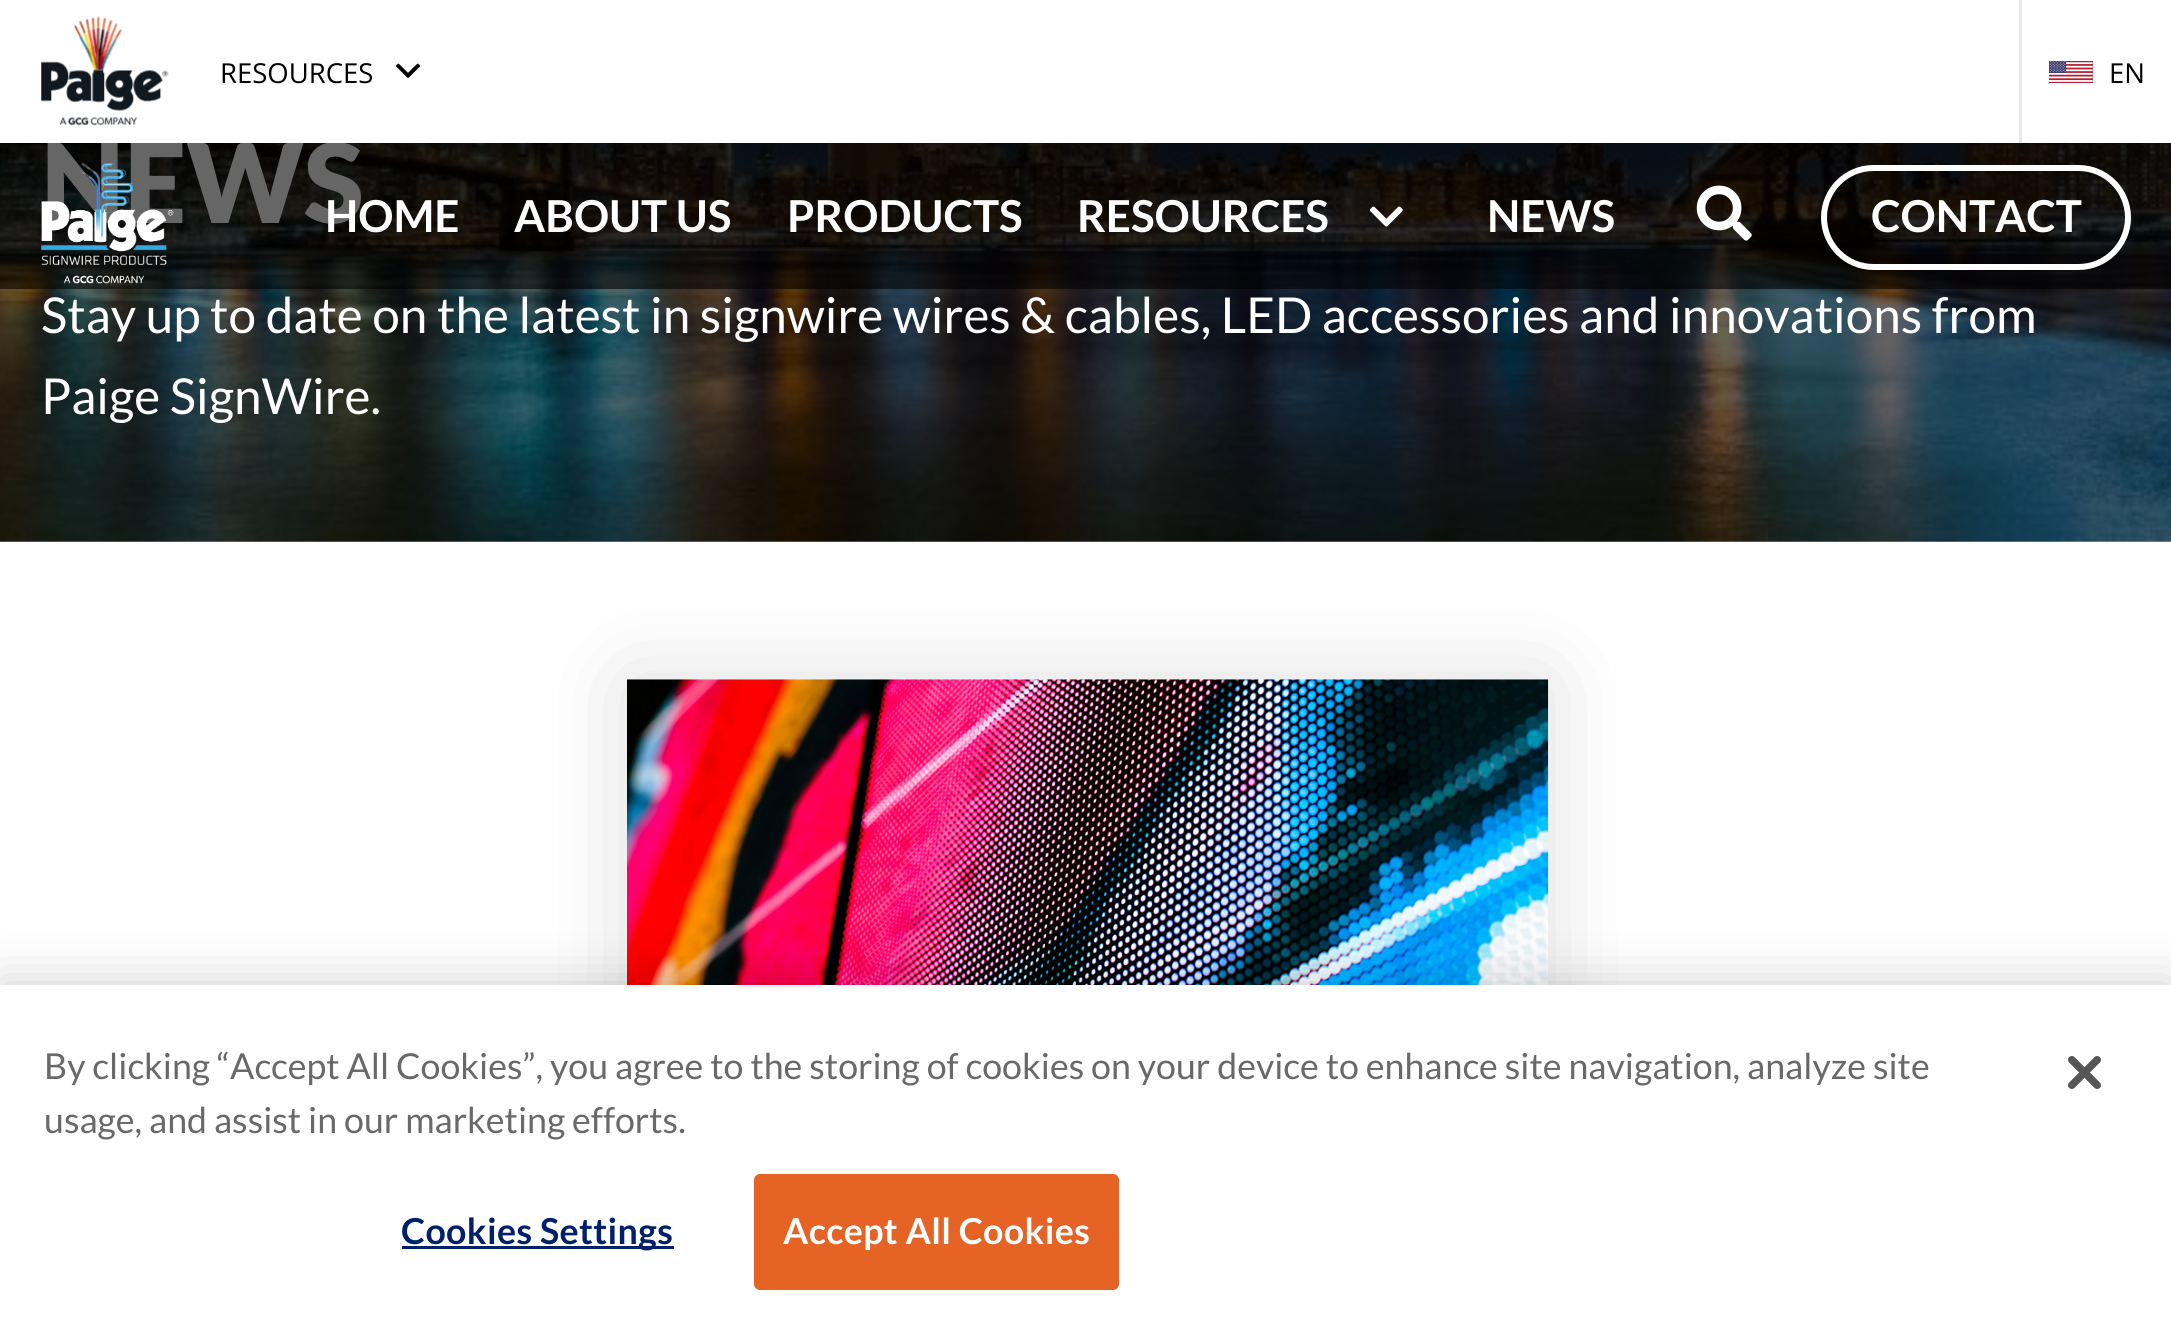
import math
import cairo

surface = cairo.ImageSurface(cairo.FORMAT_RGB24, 2171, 1317)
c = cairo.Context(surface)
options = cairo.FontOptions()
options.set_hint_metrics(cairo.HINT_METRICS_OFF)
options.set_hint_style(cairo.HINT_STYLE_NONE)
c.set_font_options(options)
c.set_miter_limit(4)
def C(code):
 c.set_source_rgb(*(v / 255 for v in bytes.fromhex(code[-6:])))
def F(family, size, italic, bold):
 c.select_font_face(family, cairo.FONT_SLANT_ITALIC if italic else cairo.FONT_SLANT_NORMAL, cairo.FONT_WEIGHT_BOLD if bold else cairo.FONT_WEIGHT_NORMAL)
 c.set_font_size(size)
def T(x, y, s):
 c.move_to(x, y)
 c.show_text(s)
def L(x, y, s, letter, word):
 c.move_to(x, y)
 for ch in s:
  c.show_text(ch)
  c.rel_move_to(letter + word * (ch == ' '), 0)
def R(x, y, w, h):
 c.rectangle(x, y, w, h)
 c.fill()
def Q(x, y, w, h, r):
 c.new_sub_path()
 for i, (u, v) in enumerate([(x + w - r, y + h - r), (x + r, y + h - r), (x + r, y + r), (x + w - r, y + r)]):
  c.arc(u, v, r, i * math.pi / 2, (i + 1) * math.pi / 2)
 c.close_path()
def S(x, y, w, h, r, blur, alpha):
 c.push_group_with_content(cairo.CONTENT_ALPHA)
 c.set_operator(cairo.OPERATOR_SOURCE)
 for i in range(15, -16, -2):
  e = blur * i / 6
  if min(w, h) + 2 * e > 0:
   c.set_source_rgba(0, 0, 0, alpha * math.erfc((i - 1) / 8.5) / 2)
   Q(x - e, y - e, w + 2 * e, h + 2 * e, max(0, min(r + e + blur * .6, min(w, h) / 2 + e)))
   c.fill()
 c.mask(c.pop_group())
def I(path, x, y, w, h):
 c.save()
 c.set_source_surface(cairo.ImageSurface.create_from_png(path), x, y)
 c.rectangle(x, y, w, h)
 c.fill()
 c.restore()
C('ffffff')
c.paint()
I('1.png',41,16,128,110)
F('Open Sans',27.5,0,0)
C('000000')
T(220,83,'RESOURCES')
I('2.png',396,63,24,15)
C('e8e8e8')
R(2019,0,3,143)
I('3.png',2049,61,44,22)
C('000000')
T(2109,83,'EN')
I('4.png',0,143,2171,399)
F('Lato Black',110,0,0)
C('ffffff')
T(41,223,'NEWS')
F('Lato',49.5,0,0)
T(41,333,'Stay up to date on the latest in signwire wires & cables, LED accessories and innovations from')
T(41,414,'Paige SignWire.')
C('000000')
S(627,679,921,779,0,47,.07)
C('ffffff')
R(627,679,921,1)
C('000000')
S(627,679,921,517,0,47,.07)
I('5.png',627,679,922,306)
c.set_source_rgba(0,0,0,0.6)
R(0,143,2171,146)
I('6.png',41,162,133,122)
F('Lato',44,0,1)
C('ffffff')
T(325,232,'HOME')
T(514,232,'ABOUT US')
T(787,232,'PRODUCTS')
T(1077,232,'RESOURCES')
I('7.png',1370,206,33,21)
T(1487,232,'NEWS')
I('8.png',1696,185,56,56)
Q(1824,168,304,99,49.5)
c.set_line_width(6)
c.stroke()
T(1871,232,'CONTACT')
C('000000')
S(0,985,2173,332,0,25,.2)
C('ffffff')
R(0,985,2171,332)
F('Lato',35.77,0,0)
C('696969')
T(44,1079,'By clicking “Accept All Cookies”, you agree to the storing of cookies on your device to enhance site navigation, analyze site')
T(44,1133,'usage, and assist in our marketing efforts.')
C('002169')
R(402,1246,272,3)
F('Lato',35.77,0,1)
L(401,1244,'Cookies Settings',.4,0)
C('e56325')
Q(755.5,1175.5,362,113,4.5)
c.fill_preserve()
c.set_line_width(3)
c.stroke()
C('ffffff')
L(783,1244,'Accept All Cookies',.4,0)
I('9.png',2068,1056,33,33)
surface.write_to_png('o.png')
